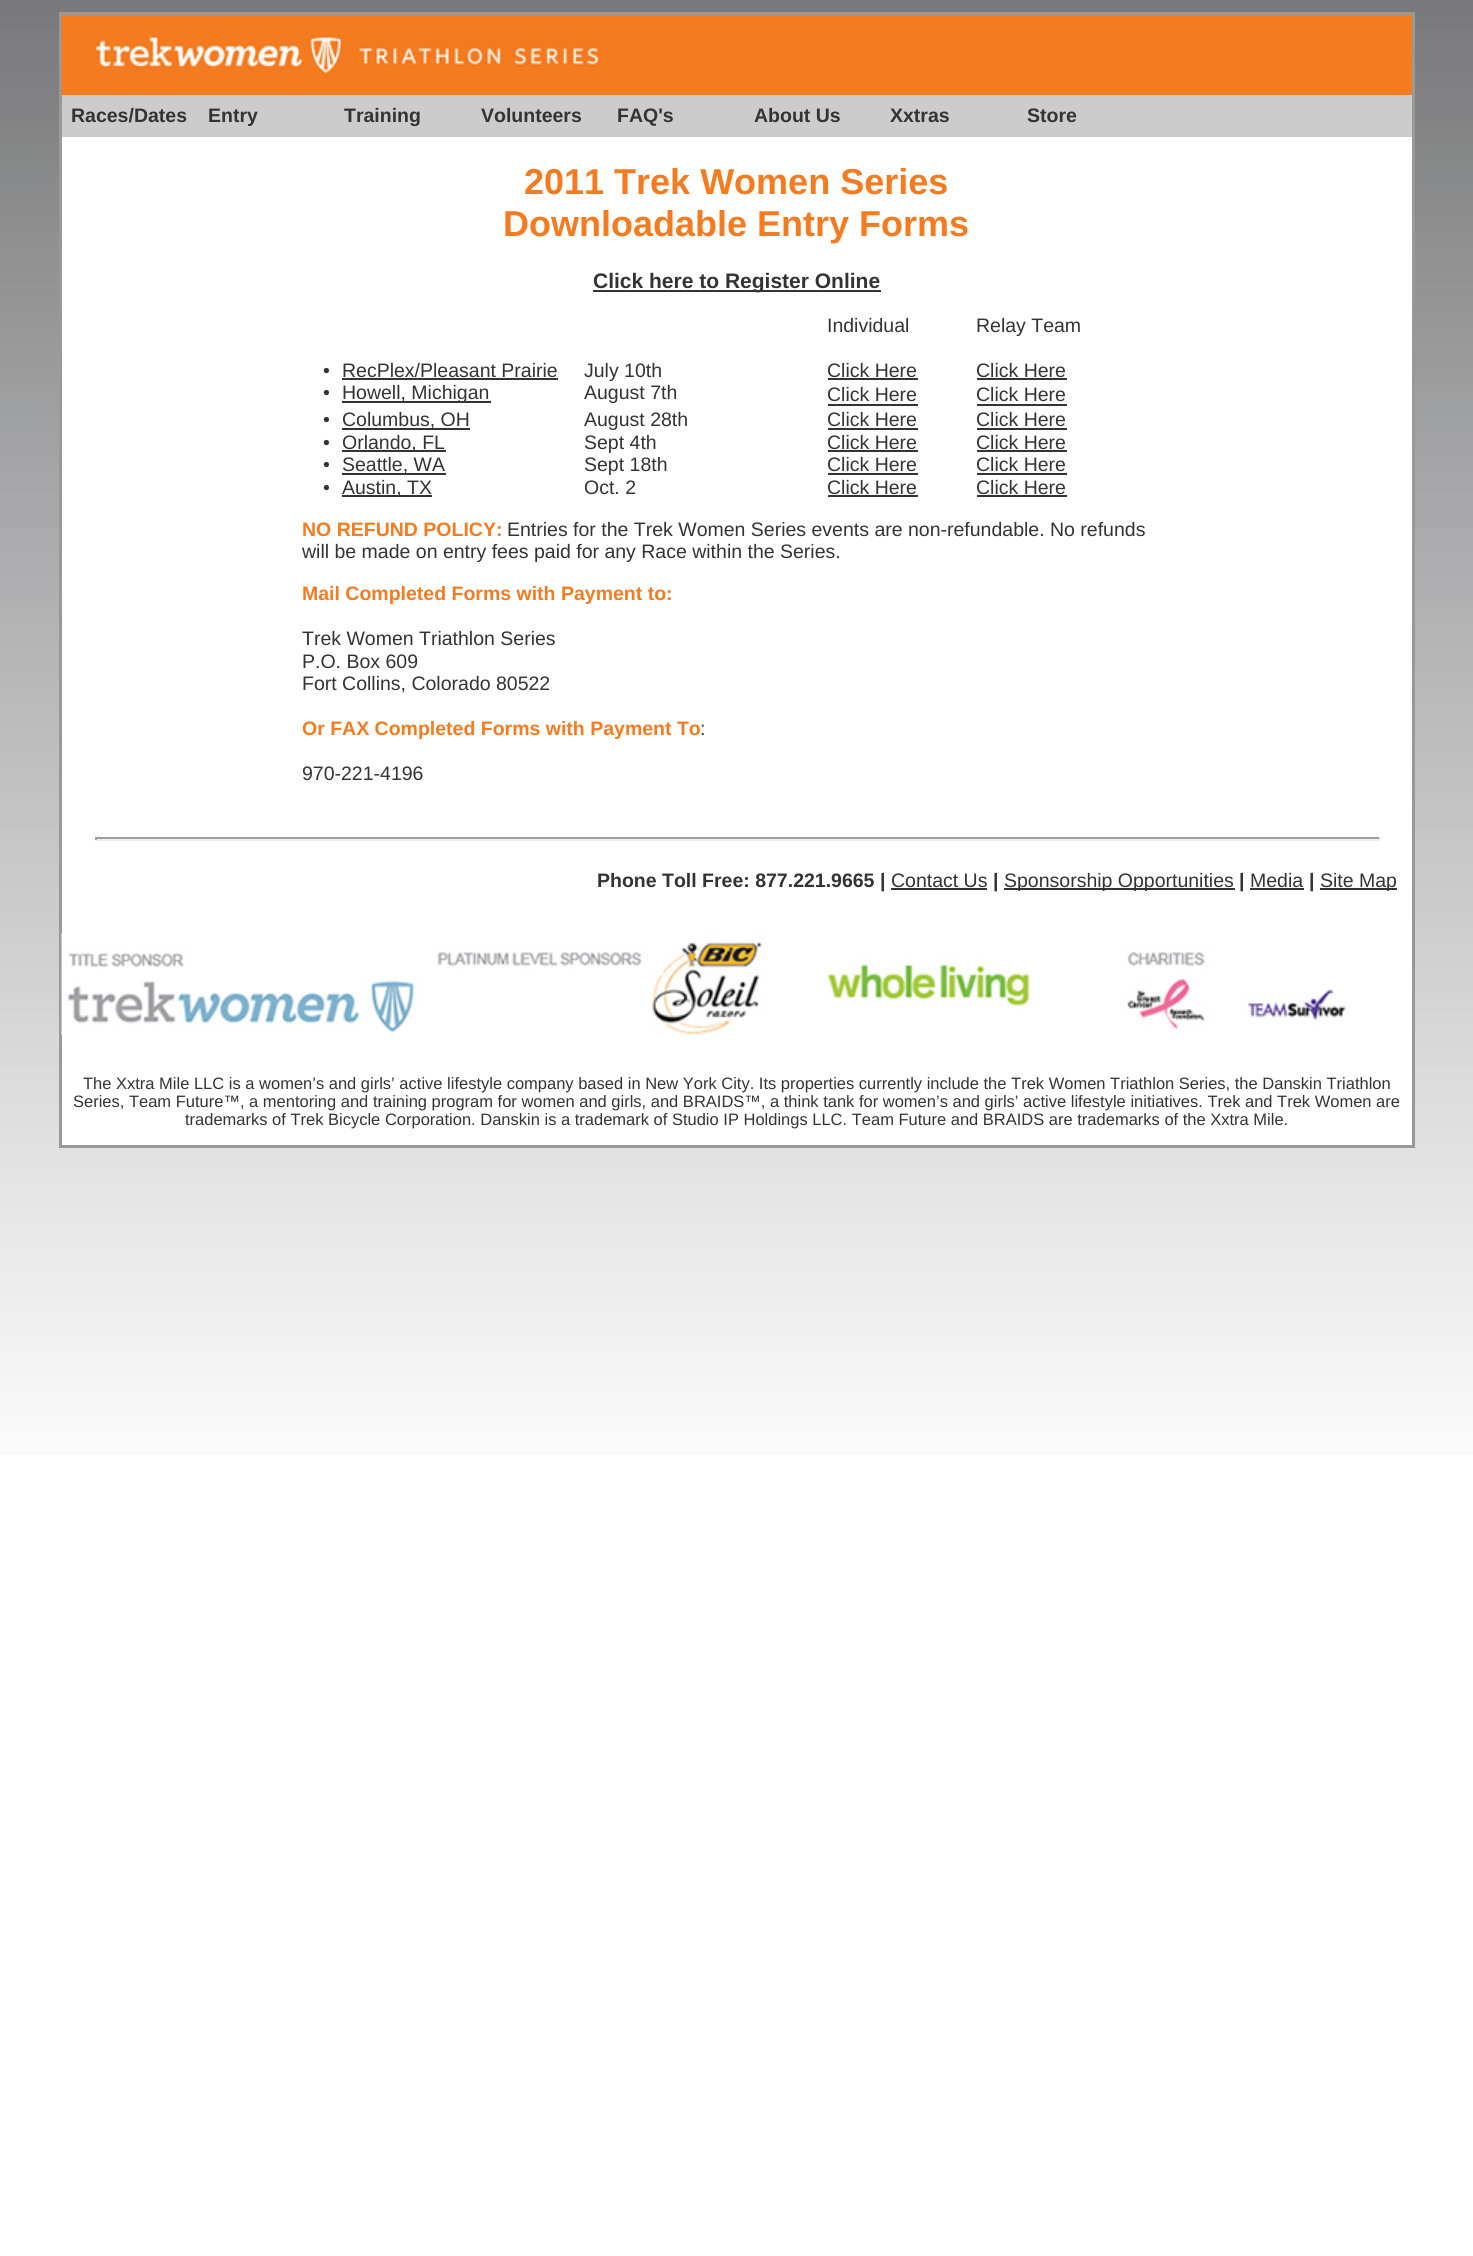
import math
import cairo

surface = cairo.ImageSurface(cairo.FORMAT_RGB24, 1473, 2256)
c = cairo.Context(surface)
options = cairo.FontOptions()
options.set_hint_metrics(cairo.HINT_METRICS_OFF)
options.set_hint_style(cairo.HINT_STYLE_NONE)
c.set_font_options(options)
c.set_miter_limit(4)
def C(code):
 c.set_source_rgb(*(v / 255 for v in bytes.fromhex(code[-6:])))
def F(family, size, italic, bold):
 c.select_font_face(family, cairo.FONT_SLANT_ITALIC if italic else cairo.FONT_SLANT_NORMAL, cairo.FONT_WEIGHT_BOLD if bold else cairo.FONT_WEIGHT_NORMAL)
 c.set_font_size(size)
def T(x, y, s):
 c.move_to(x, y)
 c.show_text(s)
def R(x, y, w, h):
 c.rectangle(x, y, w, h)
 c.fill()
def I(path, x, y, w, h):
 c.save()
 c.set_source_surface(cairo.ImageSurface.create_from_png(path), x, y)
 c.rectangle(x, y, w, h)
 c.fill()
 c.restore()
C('ffffff')
c.paint()
I('1.png',0,0,1473,1455)
c.rectangle(60,13,1354,1134)
C('999999')
c.stroke()
c.rectangle(61,15,1351,1130)
c.stroke()
C('f47b20')
R(62,15,1350,80)
I('2.png',61,15,539,80)
C('cccccc')
R(62,95,1350,42)
F('Liberation Sans',19.5,0,1)
C('333333')
T(71,122,'Races/Dates')
T(208,122,'Entry')
T(344,122,'Training')
T(481,122,'Volunteers')
T(617,122,'FAQ\'s')
T(754,122,'About Us')
T(890,122,'Xxtras')
T(1027,122,'Store')
C('ffffff')
R(62,137,1350,796)
F('Liberation Sans',36,0,1)
C('f47b20')
T(524,194,'2011 Trek Women Series')
T(503,236,'Downloadable Entry Forms')
C('333333')
R(593,290,288,2)
F('Liberation Sans',21,0,1)
T(593,288,'Click here to Register Online')
F('Liberation Sans',19.5,0,0)
T(827,332,'Individual')
T(976,332,'Relay Team')
T(323,377,'•')
T(342,377,'RecPlex/Pleasant Prairie')
R(342,378,216,2)
T(584,377,'July 10th')
T(827,377,'Click Here')
R(828,378,90,2)
T(976,377,'Click Here')
R(977,378,90,2)
T(323,399,'•')
R(342,401,149,2)
T(342,399,'Howell, Michigan')
T(584,399,'August 7th')
T(827,401,'Click Here')
R(828,404,90,2)
T(976,401,'Click Here')
R(977,404,90,2)
T(323,426,'•')
R(342,428,128,2)
T(342,426,'Columbus, OH')
T(584,426,'August 28th')
T(827,426,'Click Here')
R(828,428,90,2)
T(976,426,'Click Here')
R(977,428,90,2)
T(323,449,'•')
R(342,450,104,2)
T(342,449,'Orlando, FL')
T(584,449,'Sept 4th')
T(827,449,'Click Here')
R(828,450,90,2)
T(976,449,'Click Here')
R(977,450,90,2)
T(323,471,'•')
R(342,473,104,2)
T(342,471,'Seattle, WA')
T(584,471,'Sept 18th')
T(827,471,'Click Here')
R(828,473,90,2)
T(976,471,'Click Here')
R(977,473,90,2)
T(323,494,'•')
R(342,495,90,2)
T(342,494,'Austin, TX')
T(584,494,'Oct. 2')
T(827,494,'Click Here')
R(828,495,90,2)
T(976,494,'Click Here')
R(977,495,90,2)
F('Liberation Sans',19.5,0,1)
C('f47b20')
T(302,536,'NO REFUND POLICY:')
F('Liberation Sans',19.5,0,0)
C('333333')
T(507,536,'Entries for the Trek Women Series events are non-refundable. No refunds')
T(302,558,'will be made on entry fees paid for any Race within the Series.')
F('Liberation Sans',19.5,0,1)
C('f47b20')
T(302,600,'Mail Completed Forms with Payment to:')
F('Liberation Sans',19.5,0,0)
C('333333')
T(302,645,'Trek Women Triathlon Series')
T(302,668,'P.O. Box 609')
T(302,690,'Fort Collins, Colorado 80522')
F('Liberation Sans',19.5,0,1)
C('f47b20')
T(302,735,'Or FAX Completed Forms with Payment To')
F('Liberation Sans',19.5,0,0)
C('333333')
T(700,735,':')
T(302,780,'970-221-4196')
C('9f9f9f')
R(95,837,1285,2)
C('eeeeee')
R(1379,837,2,3)
R(95,839,1285,2)
C('9f9f9f')
R(95,837,2,3)
F('Liberation Sans',19.5,0,1)
C('333333')
T(597,887,'Phone Toll Free: 877.221.9665 |')
F('Liberation Sans',19.5,0,0)
T(891,887,'Contact Us')
R(891,888,96,2)
F('Liberation Sans',19.5,0,1)
T(993,887,'|')
R(1004,888,231,2)
F('Liberation Sans',19.5,0,0)
T(1004,887,'Sponsorship Opportunities')
F('Liberation Sans',19.5,0,1)
T(1239,887,'|')
F('Liberation Sans',19.5,0,0)
T(1250,887,'Media')
R(1250,888,54,2)
F('Liberation Sans',19.5,0,1)
T(1309,887,'|')
R(1320,888,77,2)
F('Liberation Sans',19.5,0,0)
T(1320,887,'Site Map')
C('ffffff')
R(1346,933,66,102)
I('3.png',61,933,1285,102)
R(62,1035,1350,110)
F('Liberation Sans',16.5,0,0)
C('333333')
T(83,1089,'The Xxtra Mile LLC is a women’s and girls’ active lifestyle company based in New York City. Its properties currently include the Trek Women Triathlon Series, the Danskin Triathlon')
T(73,1107,'Series, Team Future™, a mentoring and training program for women and girls, and BRAIDS™, a think tank for women’s and girls’ active lifestyle initiatives. Trek and Trek Women are')
T(185,1125,'trademarks of Trek Bicycle Corporation. Danskin is a trademark of Studio IP Holdings LLC. Team Future and BRAIDS are trademarks of the Xxtra Mile.')
surface.write_to_png('o.png')
